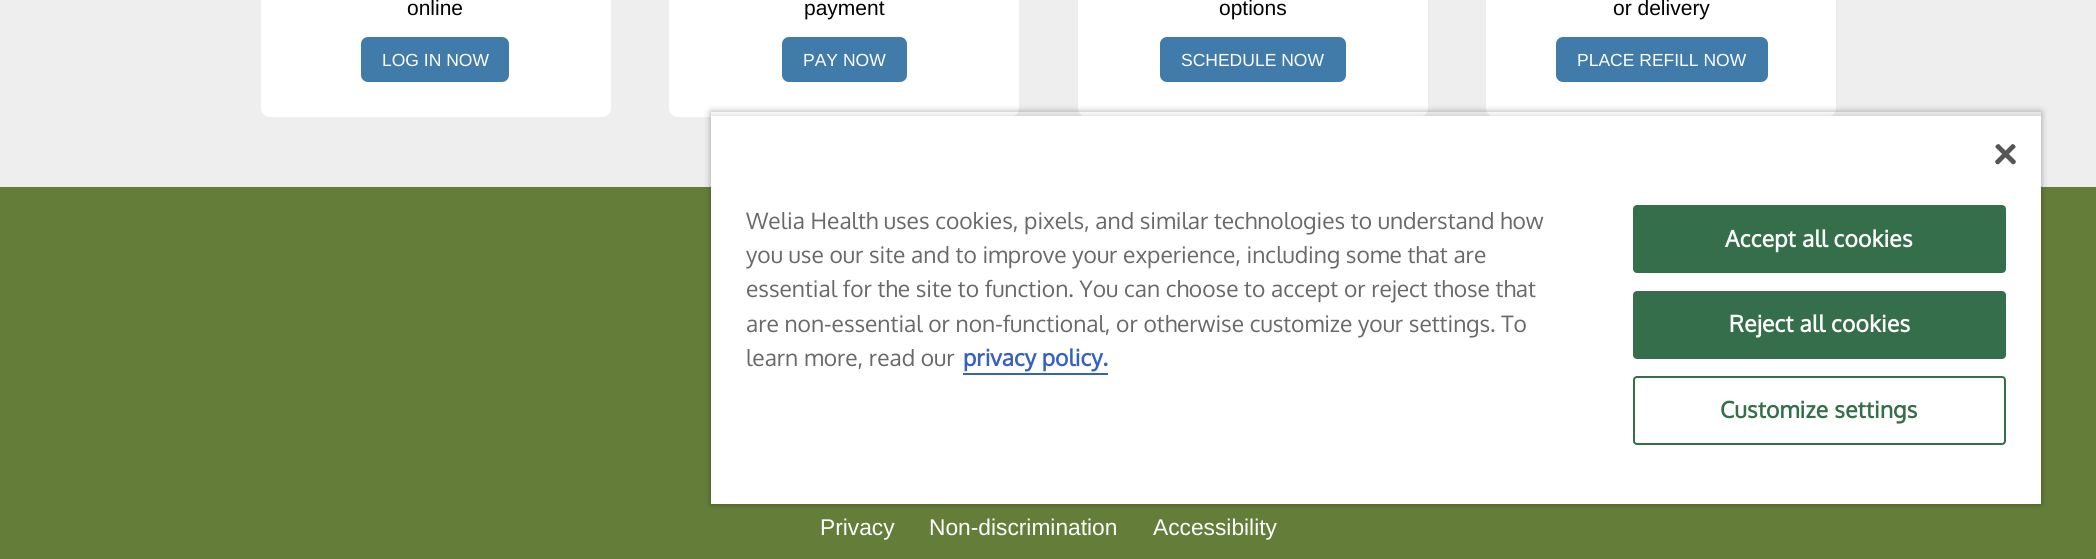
import math
import cairo

surface = cairo.ImageSurface(cairo.FORMAT_RGB24, 2096, 559)
c = cairo.Context(surface)
options = cairo.FontOptions()
options.set_hint_metrics(cairo.HINT_METRICS_OFF)
options.set_hint_style(cairo.HINT_STYLE_NONE)
c.set_font_options(options)
c.set_miter_limit(4)
def C(code):
 c.set_source_rgb(*(v / 255 for v in bytes.fromhex(code[-6:])))
def F(family, size, italic, bold):
 c.select_font_face(family, cairo.FONT_SLANT_ITALIC if italic else cairo.FONT_SLANT_NORMAL, cairo.FONT_WEIGHT_BOLD if bold else cairo.FONT_WEIGHT_NORMAL)
 c.set_font_size(size)
def T(x, y, s):
 c.move_to(x, y)
 c.show_text(s)
def L(x, y, s, letter, word):
 c.move_to(x, y)
 for ch in s:
  c.show_text(ch)
  c.rel_move_to(letter + word * (ch == ' '), 0)
def R(x, y, w, h):
 c.rectangle(x, y, w, h)
 c.fill()
def Q(x, y, w, h, r):
 c.new_sub_path()
 for i, (u, v) in enumerate([(x + w - r, y + h - r), (x + r, y + h - r), (x + r, y + r), (x + w - r, y + r)]):
  c.arc(u, v, r, i * math.pi / 2, (i + 1) * math.pi / 2)
 c.close_path()
def S(x, y, w, h, r, blur, alpha):
 c.push_group_with_content(cairo.CONTENT_ALPHA)
 c.set_operator(cairo.OPERATOR_SOURCE)
 for i in range(15, -16, -2):
  e = blur * i / 6
  if min(w, h) + 2 * e > 0:
   c.set_source_rgba(0, 0, 0, alpha * math.erfc((i - 1) / 8.5) / 2)
   Q(x - e, y - e, w + 2 * e, h + 2 * e, max(0, min(r + e + blur * .6, min(w, h) / 2 + e)))
   c.fill()
 c.mask(c.pop_group())
def I(path, x, y, w, h):
 c.save()
 c.set_source_surface(cairo.ImageSurface.create_from_png(path), x, y)
 c.rectangle(x, y, w, h)
 c.fill()
 c.restore()
C('647e3a')
c.paint()
C('eeeeee')
R(0,0,2096,187)
C('ffffff')
Q(261,-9,350,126,9)
c.fill()
F('Liberation Sans',21,0,0)
C('000000')
T(407,15,'online')
C('417baa')
Q(363,39,144,41,5)
c.fill_preserve()
c.set_line_width(4)
c.stroke()
F('Liberation Sans',17.5,0,0)
C('ffffff')
T(382,66,'LOG IN NOW')
Q(669,-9,350,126,9)
c.fill()
F('Liberation Sans',21,0,0)
C('000000')
T(804,15,'payment')
C('417baa')
Q(784,39,121,41,5)
c.fill_preserve()
c.stroke()
F('Liberation Sans',17.5,0,0)
C('ffffff')
T(803,66,'PAY NOW')
Q(1078,-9,350,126,9)
c.fill()
F('Liberation Sans',21,0,0)
C('000000')
T(1219,15,'options')
C('417baa')
Q(1162,39,182,41,5)
c.fill_preserve()
c.stroke()
F('Liberation Sans',17.5,0,0)
C('ffffff')
T(1181,66,'SCHEDULE NOW')
Q(1486,-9,350,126,9)
c.fill()
F('Liberation Sans',21,0,0)
C('000000')
T(1613,15,'or delivery')
C('417baa')
Q(1558,39,208,41,5)
c.fill_preserve()
c.stroke()
F('Liberation Sans',17.5,0,0)
C('ffffff')
T(1577,66,'PLACE REFILL NOW')
F('Liberation Sans',22.75,0,0)
T(820,535,'Privacy')
T(929,535,'Non-discrimination')
T(1153,535,'Accessibility')
c.save()
c.set_fill_rule(cairo.FILL_RULE_EVEN_ODD)
c.new_path()
c.move_to(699,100)
c.line_to(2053,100)
c.line_to(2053,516)
c.line_to(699,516)
c.close_path()
c.move_to(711,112)
c.line_to(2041,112)
c.line_to(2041,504)
c.line_to(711,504)
c.close_path()
c.clip()
C('000000')
S(711,112,1330,392,0,3.5,.35)
c.restore()
c.save()
c.rectangle(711,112,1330,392)
c.clip()
C('000000')
S(711,116,1330,388,0,3.5,.2)
c.restore()
R(711,116,1330,388)
I('1.png',1995,144,21,21)
F('Oxygen',22.75,0,0)
C('696969')
T(746,229,'Welia Health uses cookies, pixels, and similar technologies to understand how')
c.save()
c.rectangle(746,205,808,171)
c.clip()
T(746,263,'you use our site and to improve your experience, including some that are')
c.restore()
T(746,297,'essential for the site to function. You can choose to accept or reject those that')
T(746,332,'are non-essential or non-functional, or otherwise customize your settings. To')
T(746,366,'learn more, read our')
F('Oxygen',22.75,0,1)
C('3860be')
T(963,366,'privacy policy.')
R(963,373,145,2)
C('346e4a')
Q(1634,206,371,66,3)
c.fill_preserve()
c.set_line_width(2)
c.stroke()
C('ffffff')
L(1725,247,'Accept all cookies',.25,0)
C('346e4a')
Q(1634,292,371,66,3)
c.fill_preserve()
c.stroke()
C('ffffff')
L(1729,332,'Reject all cookies',.25,0)
Q(1634,377,371,67,3)
C('346e4a')
c.stroke()
L(1720,418,'Customize settings',.25,0)
surface.write_to_png('o.png')
